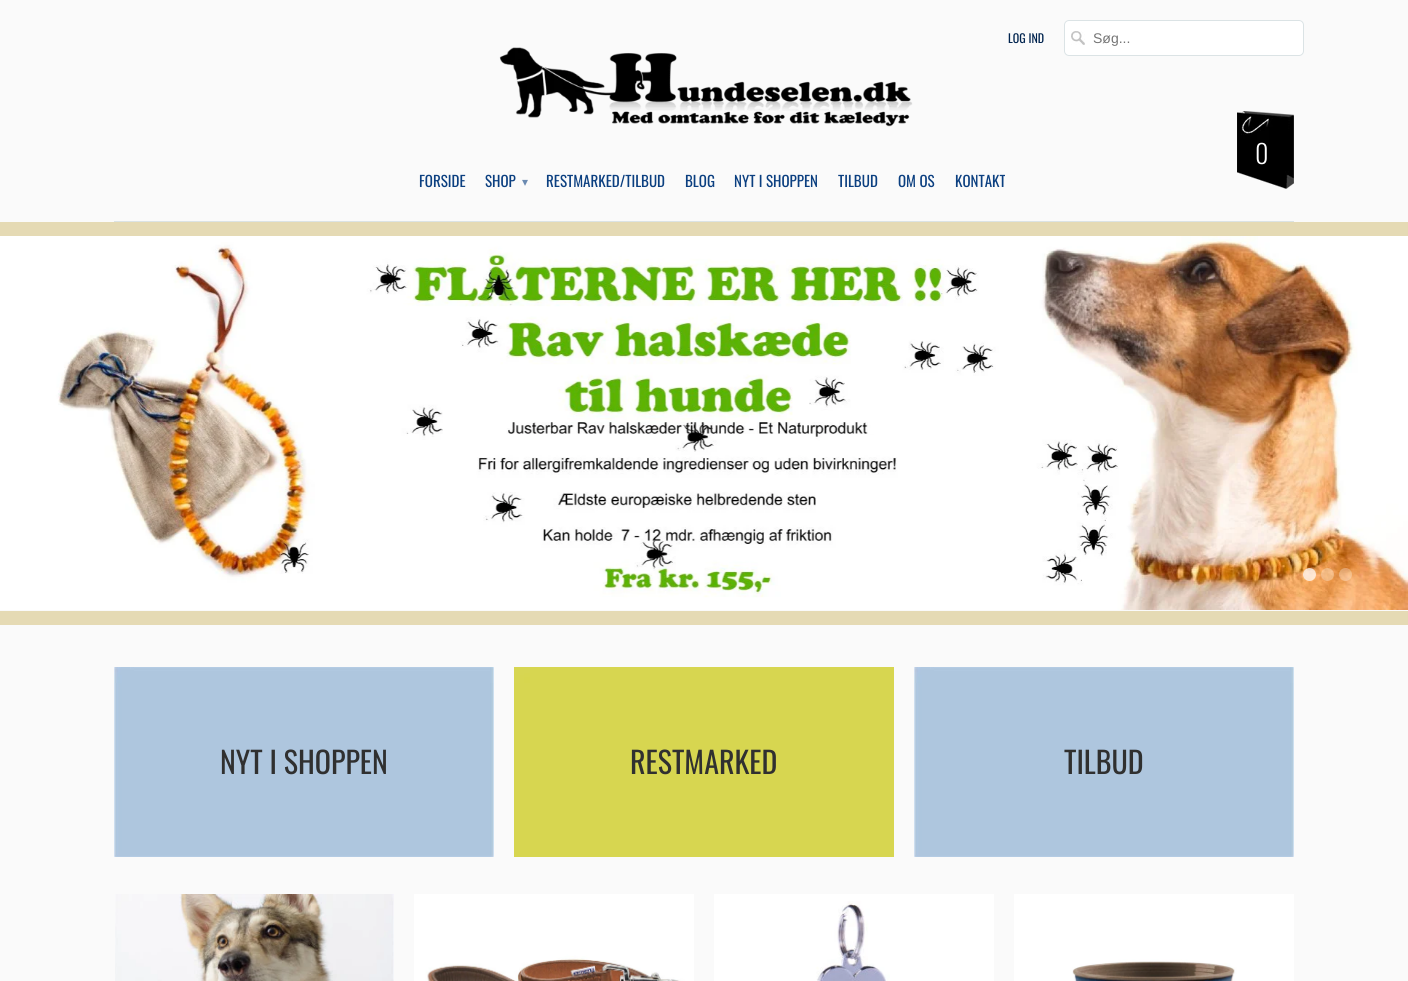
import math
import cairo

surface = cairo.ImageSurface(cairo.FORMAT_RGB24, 1408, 981)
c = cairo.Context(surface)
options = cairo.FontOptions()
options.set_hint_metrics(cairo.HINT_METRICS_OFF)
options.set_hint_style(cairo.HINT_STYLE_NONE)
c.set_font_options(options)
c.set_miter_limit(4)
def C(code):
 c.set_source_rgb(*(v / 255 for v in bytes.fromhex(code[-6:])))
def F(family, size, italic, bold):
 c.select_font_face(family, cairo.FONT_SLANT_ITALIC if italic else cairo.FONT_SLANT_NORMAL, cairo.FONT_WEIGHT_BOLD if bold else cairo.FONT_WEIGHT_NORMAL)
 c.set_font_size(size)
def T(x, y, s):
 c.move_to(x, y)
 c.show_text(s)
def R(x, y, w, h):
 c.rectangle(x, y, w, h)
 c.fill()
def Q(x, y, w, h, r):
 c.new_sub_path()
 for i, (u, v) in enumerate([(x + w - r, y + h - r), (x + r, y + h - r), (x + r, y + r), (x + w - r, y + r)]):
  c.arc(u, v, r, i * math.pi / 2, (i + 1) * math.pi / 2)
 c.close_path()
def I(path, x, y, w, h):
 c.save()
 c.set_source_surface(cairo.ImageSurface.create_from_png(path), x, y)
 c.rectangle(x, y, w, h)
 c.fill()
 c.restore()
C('fafafa')
c.paint()
C('dbe3e5')
R(114,221,1180,1)
F('Oswald',12,0,0)
C('00234e')
T(1008,43,'LOG IND')
C('ffffff')
Q(1064,20,240,36,5)
c.fill()
I('1.png',1071,31,14,14)
Q(1064.5,20.5,239,35,4.5)
C('dbe3e5')
c.set_line_width(1)
c.stroke()
F('Liberation Sans',14,0,0)
C('757575')
T(1093,43,'Søg...')
F('Oswald',15,0,0)
C('0b3f80')
T(419,187,'FORSIDE')
T(485,187,'SHOP')
F('DejaVu Sans',12,0,0)
C('6b8ab1')
T(522,186,'▾')
F('Oswald',15,0,0)
C('0b3f80')
T(546,187,'RESTMARKED/TILBUD')
T(685,187,'BLOG')
T(734,187,'NYT I SHOPPEN')
T(838,187,'TILBUD')
T(898,187,'OM OS')
T(955,187,'KONTAKT')
I('2.png',1237,111,57,78)
F('Oswald Light',26,0,0)
C('ffffff')
T(1255,164,'0')
I('3.png',499,47,414,80)
C('e5dab4')
R(0,222,1408,14)
I('4.png',0,236,1408,374)
c.set_source_rgba(1,1,1,0.7)
c.arc(1309.5,574.5,6.5,0,2 * math.pi)
c.fill()
c.set_source_rgba(1,1,1,0.3)
c.arc(1327.5,574.5,6.5,0,2 * math.pi)
c.fill()
c.arc(1345.5,574.5,6.5,0,2 * math.pi)
c.fill()
C('e5dab4')
R(0,611,1408,14)
I('5.png',114,667,380,190)
F('Oswald',30,0,0)
C('303030')
T(220,774,'NYT I SHOPPEN')
I('6.png',514,667,380,190)
T(630,774,'RESTMARKED')
I('5.png',914,667,380,190)
T(1064,774,'TILBUD')
I('7.png',115,894,279,87)
I('8.png',414,894,280,87)
I('9.png',714,894,280,87)
I('10.png',1014,894,280,87)
surface.write_to_png('o.png')
